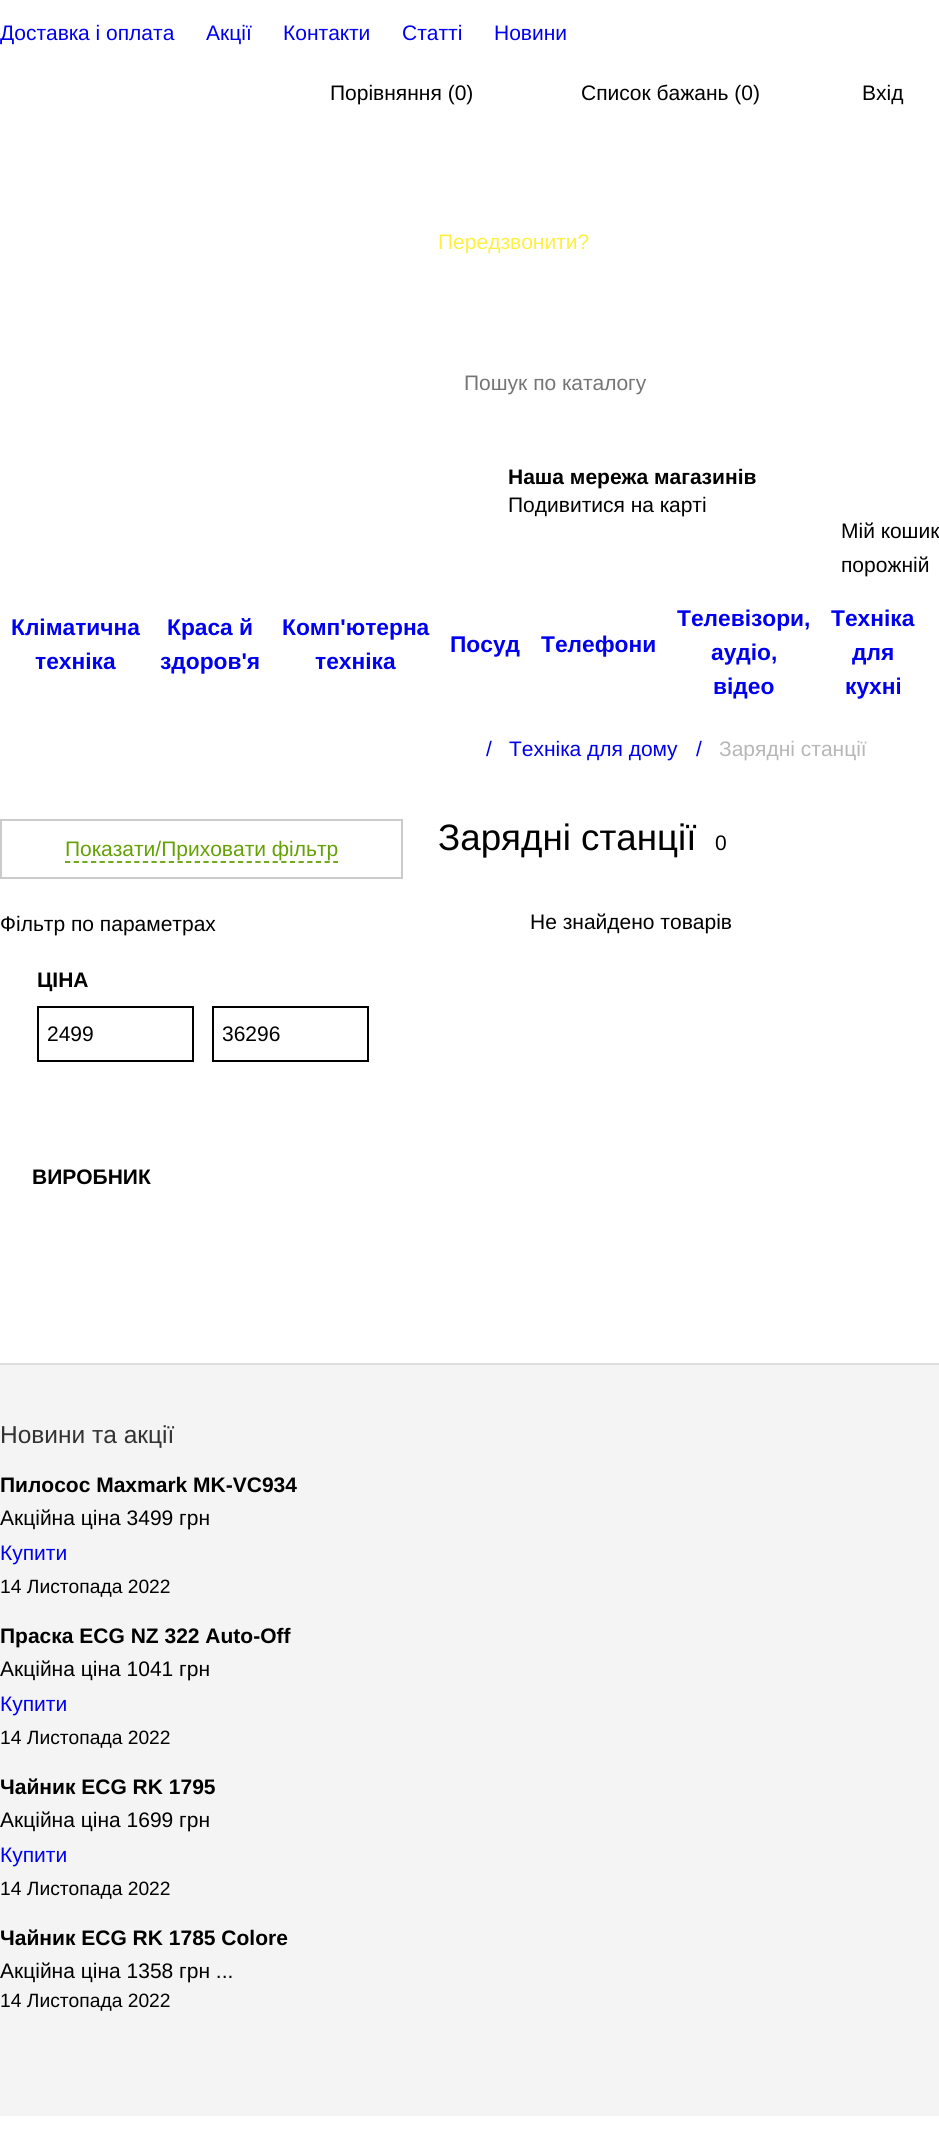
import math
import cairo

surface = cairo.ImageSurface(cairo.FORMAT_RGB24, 939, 2145)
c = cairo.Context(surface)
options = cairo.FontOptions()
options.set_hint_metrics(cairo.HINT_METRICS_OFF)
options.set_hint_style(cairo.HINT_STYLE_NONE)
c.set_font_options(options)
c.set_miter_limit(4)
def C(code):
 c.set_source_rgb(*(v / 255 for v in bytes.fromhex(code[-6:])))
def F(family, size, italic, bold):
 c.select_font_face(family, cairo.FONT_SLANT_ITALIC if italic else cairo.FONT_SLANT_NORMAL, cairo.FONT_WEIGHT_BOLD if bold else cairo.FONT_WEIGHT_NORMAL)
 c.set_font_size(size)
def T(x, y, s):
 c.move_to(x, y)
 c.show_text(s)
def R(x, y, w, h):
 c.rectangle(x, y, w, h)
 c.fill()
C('ffffff')
c.paint()
F('Liberation Sans',21,0,0)
C('0000ee')
T(0,40,'Доставка і оплата')
T(206,40,'Акції')
T(283,40,'Контакти')
T(402,40,'Статті')
T(494,40,'Новини')
C('000000')
T(330,100,'Порівняння (0)')
T(581,100,'Список бажань (0)')
T(862,100,'Вхід')
C('ffef3f')
T(438,249,'Передзвонити?')
C('757575')
T(464,390,'Пошук по каталогу')
F('Liberation Sans',21,0,1)
C('000000')
T(508,484,'Наша мережа магазинів')
F('Liberation Sans',21,0,0)
T(508,512,'Подивитися на карті')
T(841,538,'Мій кошик')
T(841,572,'порожній')
F('Liberation Sans',22.75,0,1)
C('0000ee')
T(11,635,'Кліматична')
T(35,669,'техніка')
T(167,635,'Краса й')
T(160,669,'здоров\'я')
T(282,635,'Комп\'ютерна')
T(315,669,'техніка')
T(450,652,'Посуд')
T(541,652,'Телефони')
T(677,626,'Телевізори,')
T(711,660,'аудіо,')
T(713,694,'відео')
T(831,626,'Техніка')
T(852,660,'для')
T(845,694,'кухні')
F('Liberation Sans',21,0,0)
T(486,756,'/')
T(509,756,'Техніка для дому')
T(696,756,'/')
C('b7b7b7')
T(719,756,'Зарядні станції')
c.rectangle(1,820,401,58)
C('cbcbcb')
c.stroke()
C('65a005')
T(65,856,'Показати/Приховати фільтр')
c.new_path()
c.move_to(65,862)
c.line_to(338,862)
c.set_line_width(1.8)
c.set_dash([5.25,3.4])
c.stroke()
C('000000')
T(0,931,'Фільтр по параметрах')
F('Liberation Sans',21,0,1)
T(37,987,'ЦІНА')
c.rectangle(38,1007,155,54)
c.set_line_width(2)
c.set_dash([])
c.stroke()
F('Liberation Sans',21,0,0)
T(47,1041,'2499')
c.rectangle(213,1007,155,54)
c.stroke()
T(222,1041,'36296')
F('Liberation Sans',21,0,1)
T(32,1184,'ВИРОБНИК')
F('Liberation Sans',36.75,0,0)
T(438,850,'Зарядні станції')
F('Liberation Sans',21,0,0)
T(715,850,'0')
T(530,929,'Не знайдено товарів')
C('f4f4f4')
R(0,1365,939,751)
C('dedede')
R(0,1363,939,2)
F('Liberation Sans',24.5,0,0)
C('333333')
T(0,1443,'Новини та акції')
F('Liberation Sans',21,0,1)
C('000000')
T(0,1492,'Пилосос Maxmark MK-VC934')
F('Liberation Sans',21,0,0)
T(0,1525,'Акційна ціна 3499 грн')
C('0000ee')
T(0,1560,'Купити')
F('Liberation Sans',19.25,0,0)
C('000000')
T(0,1593,'14 Листопада 2022')
F('Liberation Sans',21,0,1)
T(0,1643,'Праска ECG NZ 322 Auto-Off')
F('Liberation Sans',21,0,0)
T(0,1676,'Акційна ціна 1041 грн')
C('0000ee')
T(0,1711,'Купити')
F('Liberation Sans',19.25,0,0)
C('000000')
T(0,1744,'14 Листопада 2022')
F('Liberation Sans',21,0,1)
T(0,1794,'Чайник ECG RK 1795')
F('Liberation Sans',21,0,0)
T(0,1827,'Акційна ціна 1699 грн')
C('0000ee')
T(0,1862,'Купити')
F('Liberation Sans',19.25,0,0)
C('000000')
T(0,1895,'14 Листопада 2022')
F('Liberation Sans',21,0,1)
T(0,1945,'Чайник ECG RK 1785 Colore')
F('Liberation Sans',21,0,0)
T(0,1978,'Акційна ціна 1358 грн ...')
F('Liberation Sans',19.25,0,0)
T(0,2007,'14 Листопада 2022')
surface.write_to_png('o.png')
